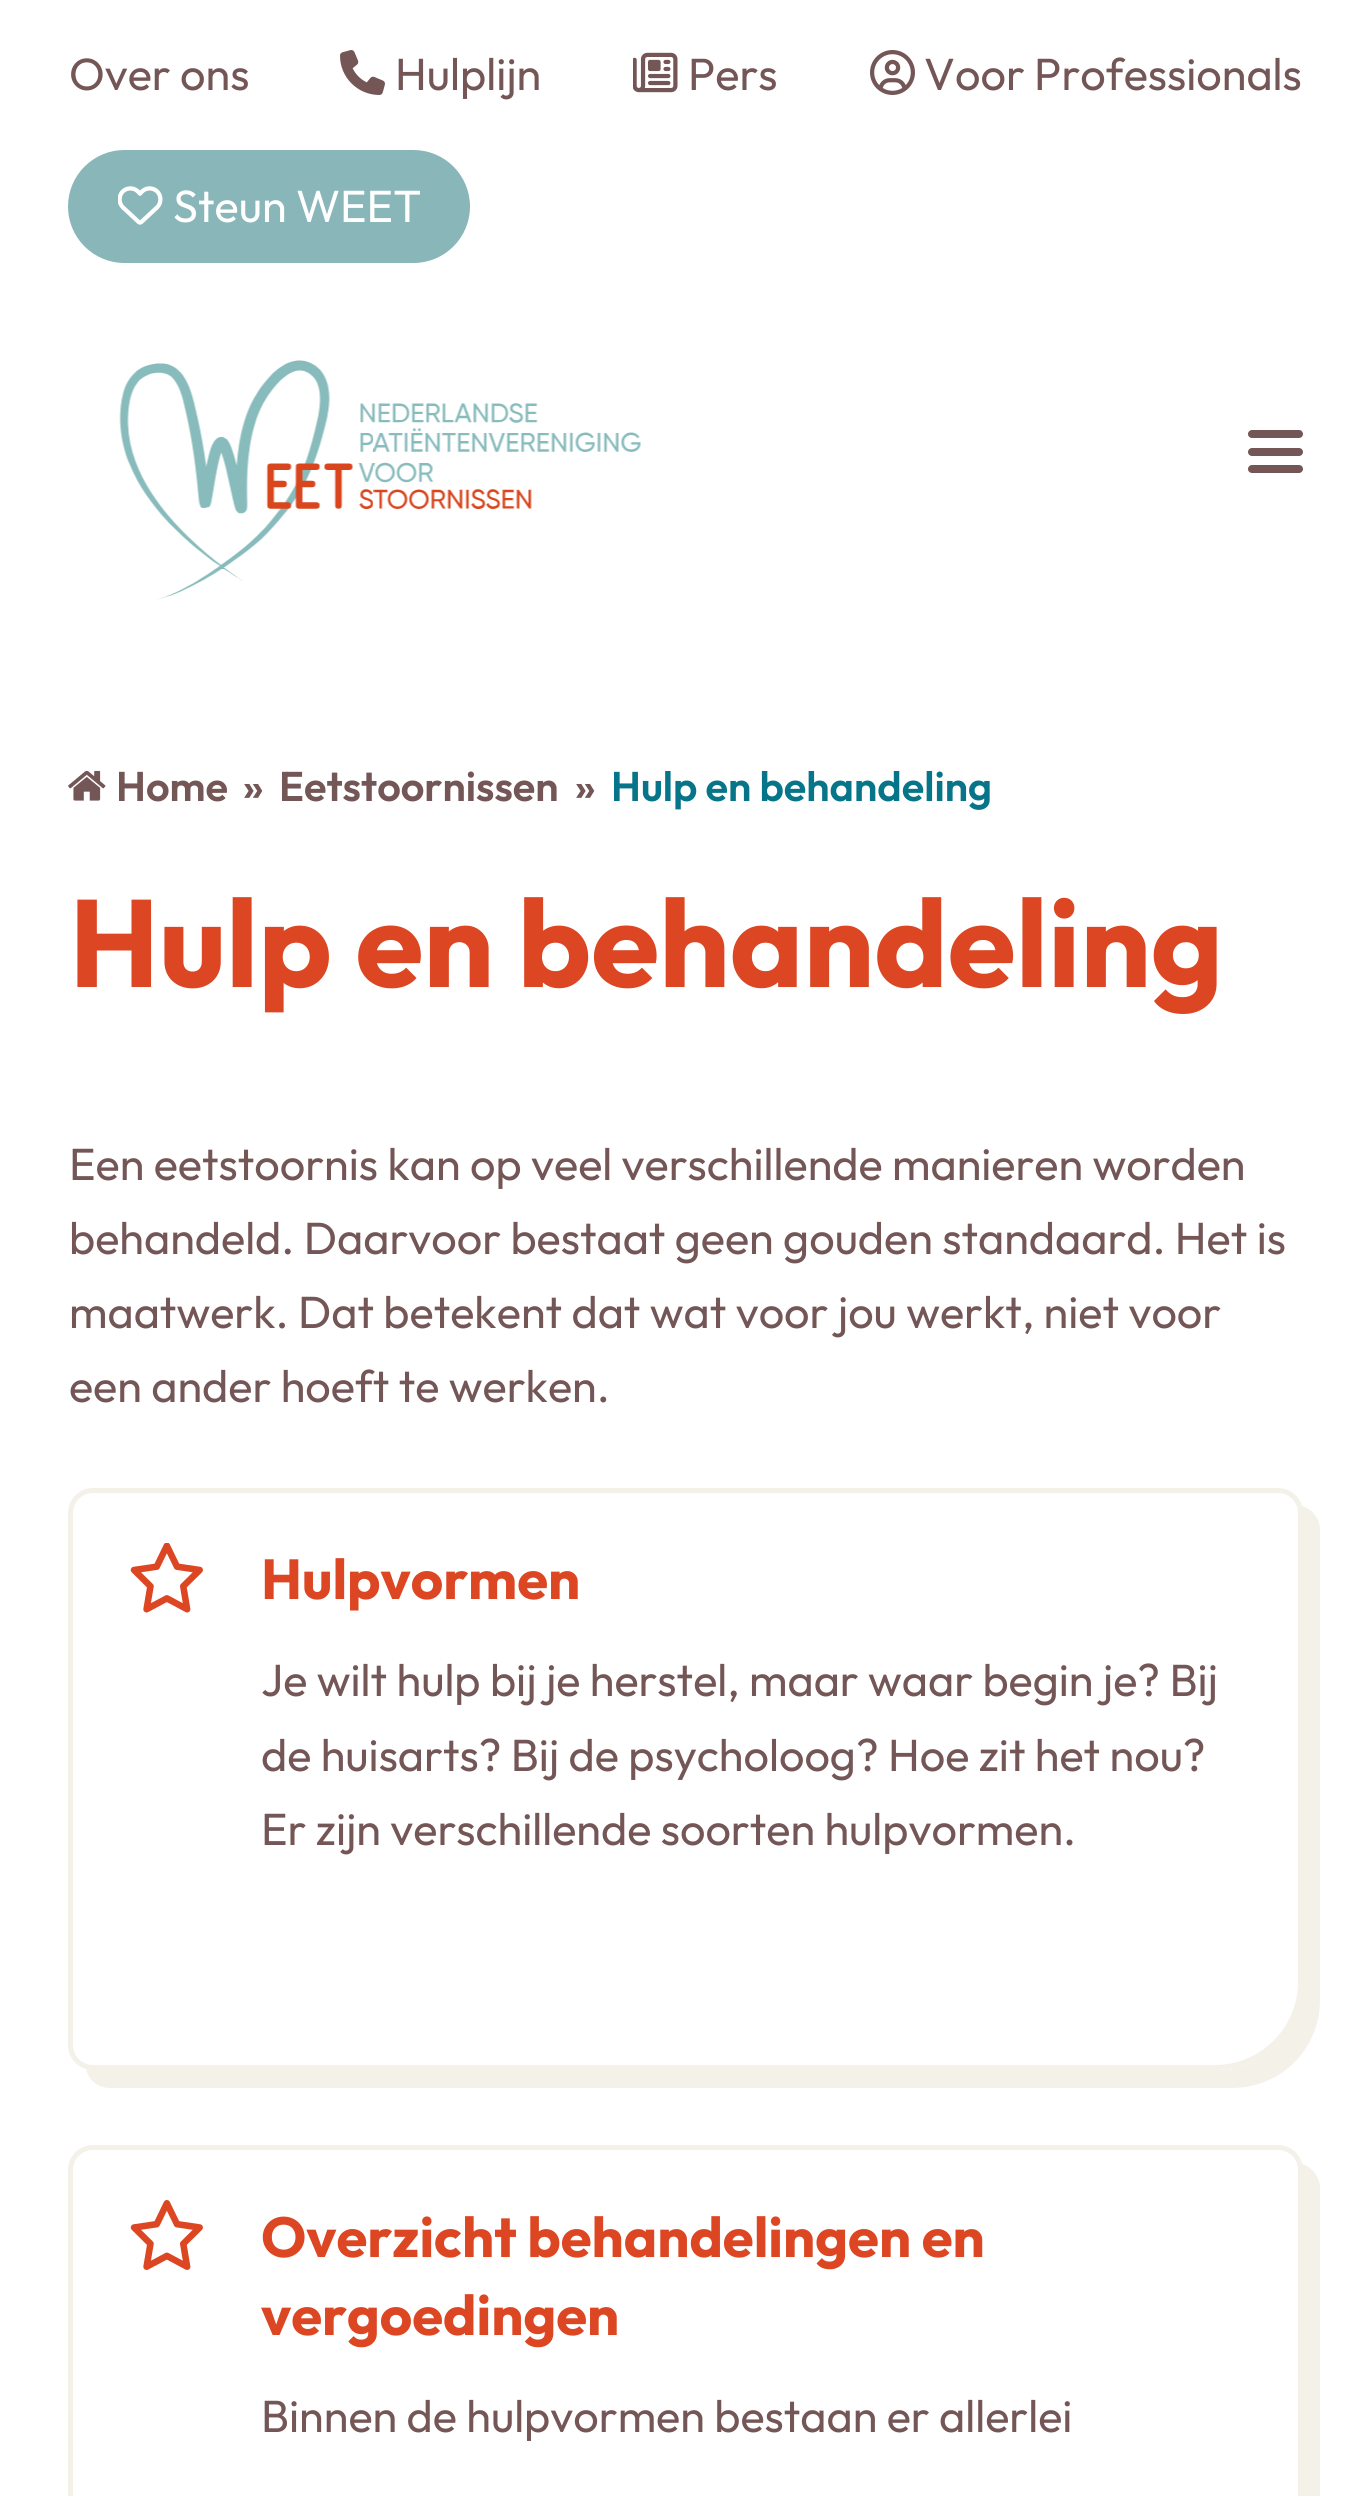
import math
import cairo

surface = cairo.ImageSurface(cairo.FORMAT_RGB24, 1370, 2496)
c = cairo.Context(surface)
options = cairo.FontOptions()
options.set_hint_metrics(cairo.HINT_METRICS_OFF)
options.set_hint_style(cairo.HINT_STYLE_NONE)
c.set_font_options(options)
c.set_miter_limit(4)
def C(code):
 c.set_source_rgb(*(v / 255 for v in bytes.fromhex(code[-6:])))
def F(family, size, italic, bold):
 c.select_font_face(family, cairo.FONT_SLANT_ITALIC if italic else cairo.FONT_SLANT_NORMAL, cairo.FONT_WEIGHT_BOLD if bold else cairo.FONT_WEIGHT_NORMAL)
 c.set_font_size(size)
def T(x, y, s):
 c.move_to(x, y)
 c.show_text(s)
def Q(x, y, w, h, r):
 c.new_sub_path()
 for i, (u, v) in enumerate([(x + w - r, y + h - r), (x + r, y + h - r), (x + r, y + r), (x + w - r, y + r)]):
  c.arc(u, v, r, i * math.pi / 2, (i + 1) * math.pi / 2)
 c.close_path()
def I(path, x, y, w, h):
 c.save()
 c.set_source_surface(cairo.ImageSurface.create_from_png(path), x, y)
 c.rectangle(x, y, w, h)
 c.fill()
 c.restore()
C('ffffff')
c.paint()
F('Outfit',45,0,0)
C('745657')
T(69,90,'Over ons')
I('1.png',340,50,45,45)
T(395,90,'Hulplijn')
I('2.png',633,52,45,41)
T(688,90,'Pers')
I('3.png',870,50,45,45)
T(924,90,'Voor Professionals')
C('89b6b9')
Q(68,150,402,113,56.5)
c.fill()
I('4.png',118,186,45,39)
C('ffffff')
T(173,222,'Steun WEET')
I('5.png',119,360,522,240)
C('745657')
Q(1248,448,55,8,4)
c.fill()
Q(1248,430,55,8,4)
c.fill()
Q(1248,465,55,8,4)
c.fill()
I('6.png',68,770,38,31)
F('Outfit SemiBold',41.5,0,0)
T(116,801,'Home')
T(243,801,'»')
T(279,801,'Eetstoornissen')
T(575,801,'»')
C('077589')
T(611,801,'Hulp en behandeling')
F('Outfit',123.75,0,1)
C('dc4622')
T(69,987,'Hulp en behandeling')
F('Outfit',45,0,0)
C('745657')
T(69,1180,'Een eetstoornis kan op veel verschillende manieren worden')
T(69,1254,'behandeld. Daarvoor bestaat geen gouden standaard. Het is')
T(69,1328,'maatwerk. Dat betekent dat wat voor jou werkt, niet voor')
T(69,1402,'een ander hoeft te werken.')
C('f4f1e9')
c.new_path()
c.move_to(86,2069)
c.curve_to(88,2080,98,2088,110,2088)
c.line_to(1232,2088)
c.curve_to(1281,2088,1320,2049,1320,2000)
c.line_to(1320,1530)
c.curve_to(1320,1518,1312,1509,1302,1506)
c.line_to(1302,1512)
c.line_to(1302,1982)
c.curve_to(1302,2031,1263,2070,1215,2070)
c.line_to(92,2070)
c.close_path()
c.fill()
c.new_path()
c.move_to(93,1490.5)
c.line_to(1278,1490.5)
c.curve_to(1290.5,1490.5,1300.5,1500.5,1300.5,1513)
c.line_to(1300.5,1982)
c.curve_to(1300.5,2029,1262,2067.5,1215,2067.5)
c.line_to(93,2067.5)
c.curve_to(80.5,2067.5,70.5,2057.5,70.5,2045)
c.line_to(70.5,1513)
c.curve_to(70.5,1500.5,80.5,1490.5,93,1490.5)
c.close_path()
c.set_line_width(5)
c.stroke()
I('7.png',130,1543,73,70)
F('Outfit',56.25,0,1)
C('dc4622')
T(261,1599,'Hulpvormen')
F('Outfit',45,0,0)
C('745657')
T(261,1696,'Je wilt hulp bij je herstel, maar waar begin je? Bij')
T(261,1771,'de huisarts? Bij de psycholoog? Hoe zit het nou?')
T(261,1845,'Er zijn verschillende soorten hulpvormen.')
C('f4f1e9')
c.new_path()
c.move_to(86,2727)
c.curve_to(89,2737,98,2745,110,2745)
c.line_to(1232,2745)
c.curve_to(1281,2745,1320,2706,1320,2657)
c.line_to(1320,2188)
c.curve_to(1320,2177,1312,2167,1302,2164)
c.line_to(1302,2170)
c.line_to(1302,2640)
c.curve_to(1302,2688,1263,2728,1215,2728)
c.line_to(92,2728)
c.close_path()
c.fill()
c.new_path()
c.move_to(93,2147.5)
c.line_to(1278,2147.5)
c.curve_to(1290.5,2147.5,1300.5,2157.5,1300.5,2170)
c.line_to(1300.5,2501)
c.curve_to(1300.5,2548,1262,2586.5,1215,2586.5)
c.line_to(93,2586.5)
c.curve_to(80.5,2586.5,70.5,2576.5,70.5,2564)
c.line_to(70.5,2170)
c.curve_to(70.5,2157.5,80.5,2147.5,93,2147.5)
c.close_path()
c.stroke()
I('8.png',130,2200,73,70)
F('Outfit',56.25,0,1)
C('dc4622')
T(261,2257,'Overzicht behandelingen en')
T(261,2335,'vergoedingen')
F('Outfit',45,0,0)
C('745657')
T(261,2432,'Binnen de hulpvormen bestaan er allerlei')
surface.write_to_png('o.png')
